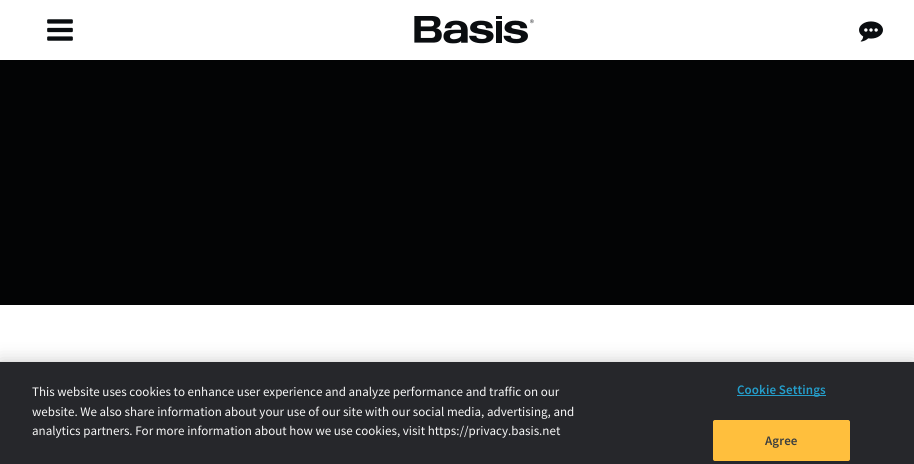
import math
import cairo

surface = cairo.ImageSurface(cairo.FORMAT_RGB24, 914, 464)
c = cairo.Context(surface)
options = cairo.FontOptions()
options.set_hint_metrics(cairo.HINT_METRICS_OFF)
options.set_hint_style(cairo.HINT_STYLE_NONE)
c.set_font_options(options)
c.set_miter_limit(4)
def C(code):
 c.set_source_rgb(*(v / 255 for v in bytes.fromhex(code[-6:])))
def F(family, size, italic, bold):
 c.select_font_face(family, cairo.FONT_SLANT_ITALIC if italic else cairo.FONT_SLANT_NORMAL, cairo.FONT_WEIGHT_BOLD if bold else cairo.FONT_WEIGHT_NORMAL)
 c.set_font_size(size)
def T(x, y, s):
 c.move_to(x, y)
 c.show_text(s)
def L(x, y, s, letter, word):
 c.move_to(x, y)
 for ch in s:
  c.show_text(ch)
  c.rel_move_to(letter + word * (ch == ' '), 0)
def R(x, y, w, h):
 c.rectangle(x, y, w, h)
 c.fill()
def Q(x, y, w, h, r):
 c.new_sub_path()
 for i, (u, v) in enumerate([(x + w - r, y + h - r), (x + r, y + h - r), (x + r, y + r), (x + w - r, y + r)]):
  c.arc(u, v, r, i * math.pi / 2, (i + 1) * math.pi / 2)
 c.close_path()
def S(x, y, w, h, r, blur, alpha):
 c.push_group_with_content(cairo.CONTENT_ALPHA)
 c.set_operator(cairo.OPERATOR_SOURCE)
 for i in range(15, -16, -2):
  e = blur * i / 6
  if min(w, h) + 2 * e > 0:
   c.set_source_rgba(0, 0, 0, alpha * math.erfc((i - 1) / 8.5) / 2)
   Q(x - e, y - e, w + 2 * e, h + 2 * e, max(0, min(r + e + blur * .6, min(w, h) / 2 + e)))
   c.fill()
 c.mask(c.pop_group())
def I(path, x, y, w, h):
 c.save()
 c.set_source_surface(cairo.ImageSurface.create_from_png(path), x, y)
 c.rectangle(x, y, w, h)
 c.fill()
 c.restore()
C('ffffff')
c.paint()
I('1.png',47,19,26,22)
I('2.png',414,16,120,28)
I('3.png',859,21,24,21)
C('030405')
R(0,60,914,245)
C('000000')
S(0,361,914,103,0,9,.2)
C('26272b')
R(0,362,914,102)
C('e2e2e2')
R(0,361,914,1)
F('Source Sans Pro',13,0,0)
C('f7f7f7')
T(32,396,'This website uses cookies to enhance user experience and analyze performance and traffic on our')
T(32,416,'website. We also share information about your use of our site with our social media, advertising, and')
T(32,435,'analytics partners. For more information about how we use cookies, visit https://privacy.basis.net')
C('249ecb')
R(737,395,89,1)
F('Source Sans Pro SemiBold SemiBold',13,0,0)
L(737,394,'Cookie Settings',.1,0)
C('ffbf3d')
Q(713.5,420.5,136,40,1.5)
c.fill_preserve()
c.set_line_width(1)
c.stroke()
C('3a3d3f')
L(765,445,'Agree',.1,0)
surface.write_to_png('o.png')
